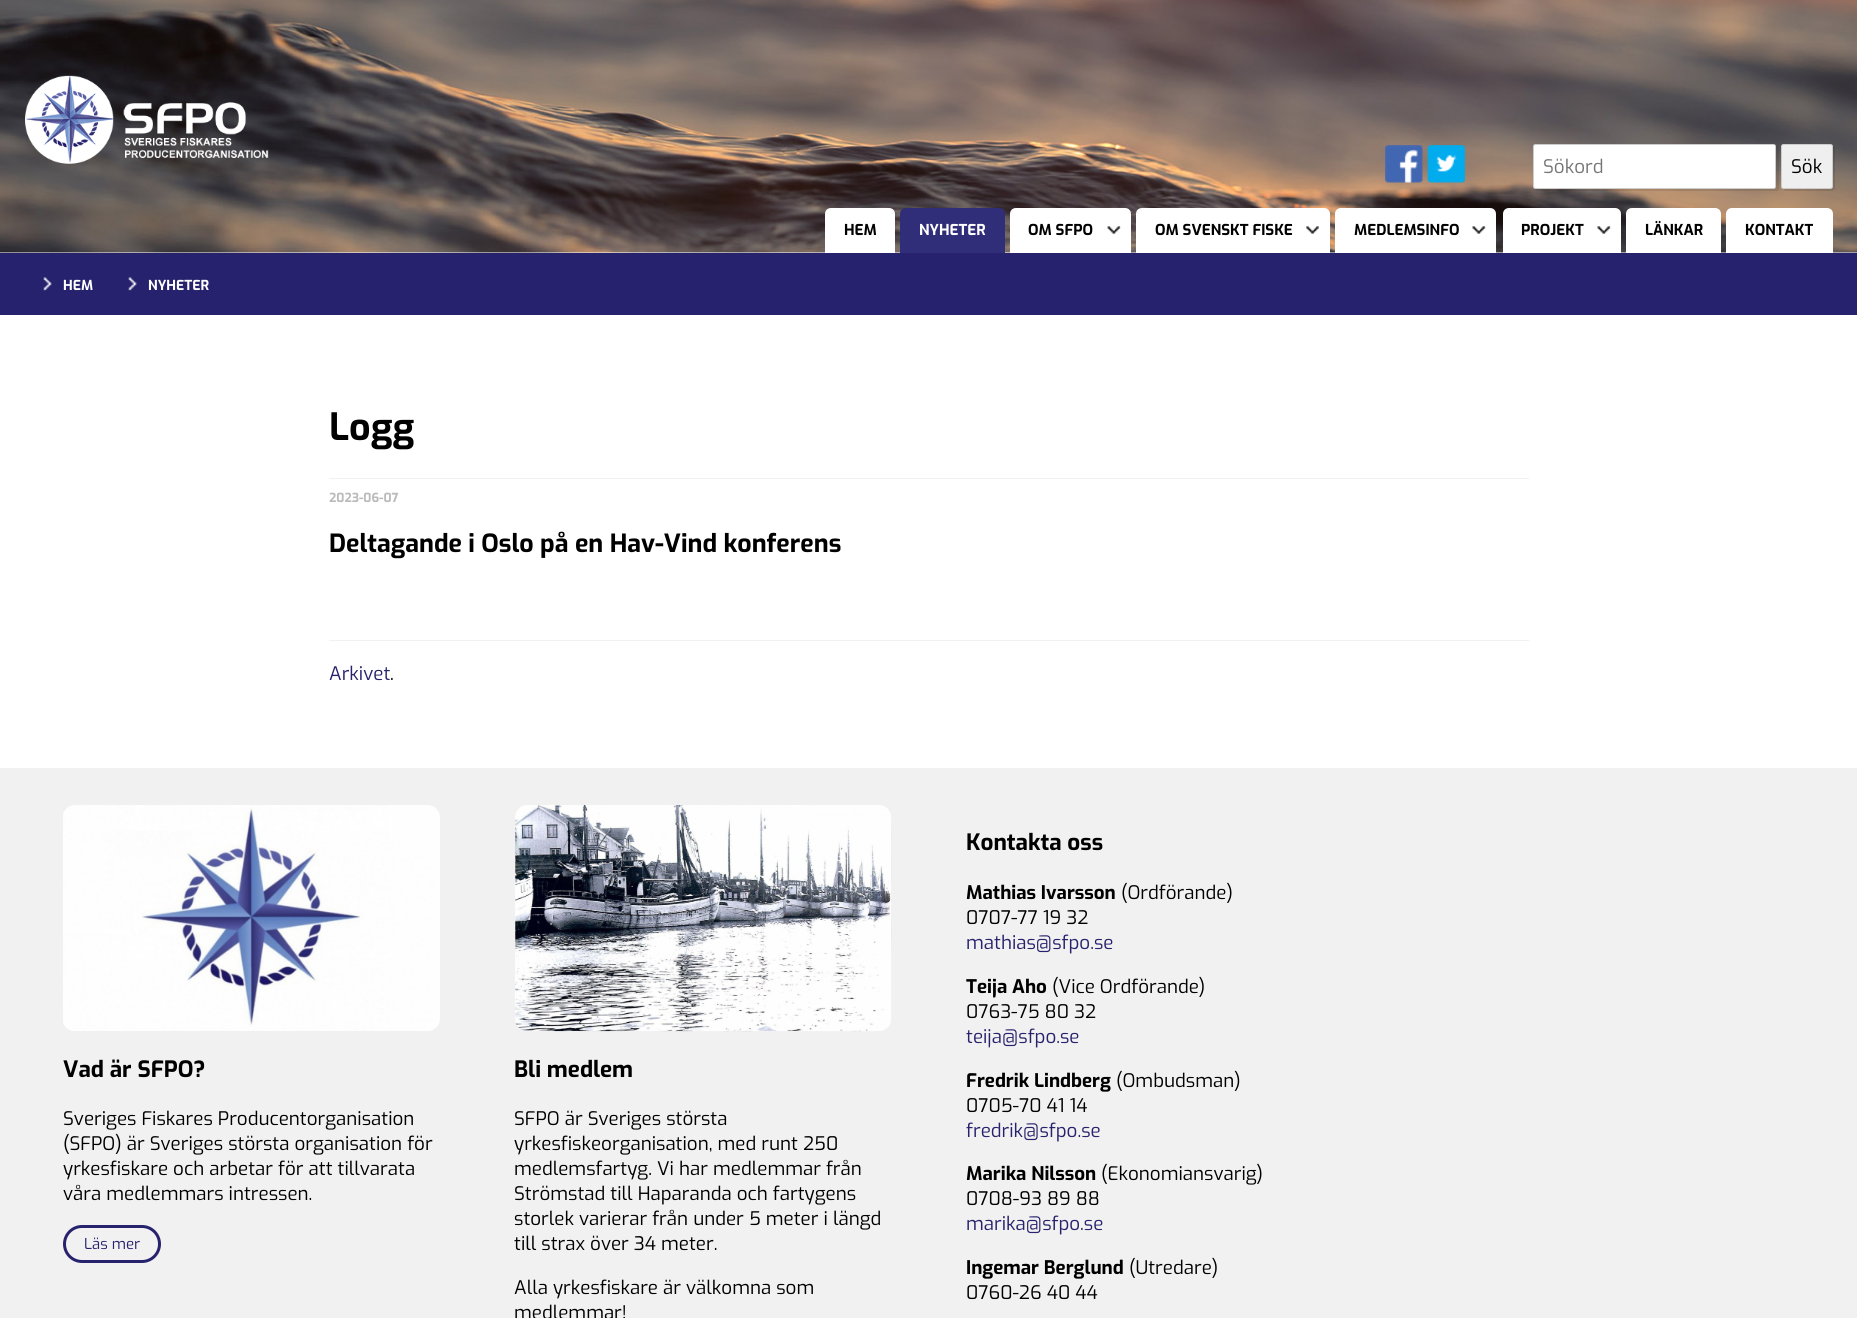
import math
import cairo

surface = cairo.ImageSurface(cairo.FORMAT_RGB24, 1857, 1318)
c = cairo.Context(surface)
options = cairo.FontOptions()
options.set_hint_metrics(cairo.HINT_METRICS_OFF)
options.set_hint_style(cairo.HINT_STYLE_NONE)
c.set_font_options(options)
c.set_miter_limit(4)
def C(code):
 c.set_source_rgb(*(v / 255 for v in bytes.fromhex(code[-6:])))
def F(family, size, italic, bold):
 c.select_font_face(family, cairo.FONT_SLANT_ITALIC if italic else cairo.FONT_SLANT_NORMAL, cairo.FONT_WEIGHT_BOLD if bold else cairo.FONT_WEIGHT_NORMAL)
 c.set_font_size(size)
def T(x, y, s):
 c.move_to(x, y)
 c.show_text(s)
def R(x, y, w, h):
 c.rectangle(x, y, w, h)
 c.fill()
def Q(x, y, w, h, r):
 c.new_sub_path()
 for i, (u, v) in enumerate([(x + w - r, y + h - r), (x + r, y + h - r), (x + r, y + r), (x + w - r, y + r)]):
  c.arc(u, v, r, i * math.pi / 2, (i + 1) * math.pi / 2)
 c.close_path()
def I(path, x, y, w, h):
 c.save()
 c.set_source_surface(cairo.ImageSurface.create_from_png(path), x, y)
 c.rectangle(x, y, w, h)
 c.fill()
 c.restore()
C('ffffff')
c.paint()
I('1.png',0,0,1857,253)
I('2.png',25,75,244,89)
I('3.png',1385,145,38,38)
I('4.png',1427,145,38,38)
c.set_source_rgba(0,0,0,0.1)
c.new_path()
c.move_to(1535,189)
c.curve_to(1535,190,1536,191,1538,191)
c.line_to(1776,191)
c.curve_to(1778,191,1779,190,1779,188)
c.line_to(1779,148)
c.curve_to(1779,147,1778,146,1776,146)
c.line_to(1776,186)
c.curve_to(1776,188,1775,189,1774,189)
c.close_path()
c.fill()
C('ffffff')
Q(1533.5,144.5,242,44,2)
c.fill_preserve()
C('cccccc')
c.set_line_width(1)
c.stroke()
F('Exo',18.75,0,0)
C('757575')
T(1543,173,'Sökord')
c.set_source_rgba(0,0,0,0.1)
c.new_path()
c.move_to(1784,189)
c.curve_to(1784,190,1785,191,1786,191)
c.line_to(1832,191)
c.curve_to(1834,191,1835,190,1835,188)
c.line_to(1835,148)
c.curve_to(1835,147,1834,146,1832,146)
c.line_to(1832,173)
c.curve_to(1832,189,1836,189,1822,189)
c.close_path()
c.fill()
C('efefef')
Q(1781.5,144.5,51,44,2)
c.fill_preserve()
C('cccccc')
c.stroke()
C('000000')
T(1791,173,'Sök')
C('ffffff')
c.new_path()
c.move_to(831,208)
c.line_to(889,208)
c.curve_to(892.5,208,895,210.5,895,214)
c.line_to(895,253)
c.line_to(825,253)
c.line_to(825,214)
c.curve_to(825,210.5,827.5,208,831,208)
c.close_path()
c.fill()
F('Exo',15,0,1)
C('000000')
T(844,235,'HEM')
C('312e79')
c.new_path()
c.move_to(906,208)
c.line_to(999,208)
c.curve_to(1002.5,208,1005,210.5,1005,214)
c.line_to(1005,253)
c.line_to(900,253)
c.line_to(900,214)
c.curve_to(900,210.5,902.5,208,906,208)
c.close_path()
c.fill()
C('ffffff')
T(919,235,'NYHETER')
c.new_path()
c.move_to(1016,208)
c.line_to(1125,208)
c.curve_to(1128.5,208,1131,210.5,1131,214)
c.line_to(1131,253)
c.line_to(1010,253)
c.line_to(1010,214)
c.curve_to(1010,210.5,1012.5,208,1016,208)
c.close_path()
c.fill()
I('5.png',1107,226,14,8)
C('000000')
T(1028,235,'OM SFPO')
C('ffffff')
c.new_path()
c.move_to(1142,208)
c.line_to(1324,208)
c.curve_to(1327.5,208,1330,210.5,1330,214)
c.line_to(1330,253)
c.line_to(1136,253)
c.line_to(1136,214)
c.curve_to(1136,210.5,1138.5,208,1142,208)
c.close_path()
c.fill()
I('6.png',1306,226,13,8)
C('000000')
T(1155,235,'OM SVENSKT FISKE')
C('ffffff')
c.new_path()
c.move_to(1341,208)
c.line_to(1490,208)
c.curve_to(1493.5,208,1496,210.5,1496,214)
c.line_to(1496,253)
c.line_to(1335,253)
c.line_to(1335,214)
c.curve_to(1335,210.5,1337.5,208,1341,208)
c.close_path()
c.fill()
I('7.png',1472,226,14,8)
C('000000')
T(1354,235,'MEDLEMSINFO')
C('ffffff')
c.new_path()
c.move_to(1509,208)
c.line_to(1615,208)
c.curve_to(1618.5,208,1621,210.5,1621,214)
c.line_to(1621,253)
c.line_to(1503,253)
c.line_to(1503,214)
c.curve_to(1503,210.5,1505.5,208,1509,208)
c.close_path()
c.fill()
I('7.png',1597,226,14,8)
C('000000')
T(1521,235,'PROJEKT')
C('ffffff')
c.new_path()
c.move_to(1632,208)
c.line_to(1715,208)
c.curve_to(1718.5,208,1721,210.5,1721,214)
c.line_to(1721,253)
c.line_to(1626,253)
c.line_to(1626,214)
c.curve_to(1626,210.5,1628.5,208,1632,208)
c.close_path()
c.fill()
C('000000')
T(1645,235,'LÄNKAR')
C('ffffff')
c.new_path()
c.move_to(1732,208)
c.line_to(1827,208)
c.curve_to(1830.5,208,1833,210.5,1833,214)
c.line_to(1833,253)
c.line_to(1726,253)
c.line_to(1726,214)
c.curve_to(1726,210.5,1728.5,208,1732,208)
c.close_path()
c.fill()
C('000000')
T(1745,235,'KONTAKT')
C('27226d')
R(0,253,1857,62)
I('8.png',43,277,9,14)
F('Exo',13.75,0,1)
C('ffffff')
T(63,290,'HEM')
I('8.png',128,277,9,14)
T(148,290,'NYHETER')
F('Exo',37.5,0,1)
C('000000')
T(329,440,'Logg')
C('f1f1f1')
R(329,478,1200,1)
F('Exo',12.5,0,1)
C('bbbbbb')
T(329,502,'2023-06-07')
F('Exo',25,0,1)
C('000000')
T(329,552,'Deltagande i Oslo på en Hav-Vind konferens')
C('f1f1f1')
R(329,640,1200,1)
F('Exo',18.75,0,0)
C('27226d')
T(329,680,'Arkivet')
C('000000')
T(390,680,'.')
C('f1f1f1')
R(0,768,1857,550)
I('9.png',63,805,377,226)
F('Exo',22.5,0,1)
C('000000')
T(63,1077,'Vad är SFPO?')
F('Exo',18.75,0,0)
T(63,1125,'Sveriges Fiskares Producentorganisation')
T(63,1150,'(SFPO) är Sveriges största organisation för')
T(63,1175,'yrkesfiskare och arbetar för att tillvarata')
T(63,1200,'våra medlemmars intressen.')
Q(64.5,1226.5,95,35,17.5)
C('27226d')
c.set_line_width(3)
c.stroke()
F('Exo',15,0,0)
T(84,1249,'Läs mer')
I('10.png',515,805,377,227)
F('Exo',22.5,0,1)
C('000000')
T(514,1077,'Bli medlem')
F('Exo',18.75,0,0)
T(514,1125,'SFPO är Sveriges största')
T(514,1150,'yrkesfiskeorganisation, med runt 250')
T(514,1175,'medlemsfartyg. Vi har medlemmar från')
T(514,1200,'Strömstad till Haparanda och fartygens')
T(514,1225,'storlek varierar från under 5 meter i längd')
T(514,1250,'till strax över 34 meter.')
T(514,1294,'Alla yrkesfiskare är välkomna som')
T(514,1319,'medlemmar!')
F('Exo',22.5,0,1)
T(966,850,'Kontakta oss')
F('Exo',18.75,0,1)
T(966,899,'Mathias Ivarsson')
F('Exo',18.75,0,0)
T(1121,899,'(Ordförande)')
T(966,924,'0707-77 19 32')
C('27226d')
T(966,949,'mathias@sfpo.se')
F('Exo',18.75,0,1)
C('000000')
T(966,993,'Teija Aho')
F('Exo',18.75,0,0)
T(1052,993,'(Vice Ordförande)')
T(966,1018,'0763-75 80 32')
C('27226d')
T(966,1043,'teija@sfpo.se')
F('Exo',18.75,0,1)
C('000000')
T(966,1087,'Fredrik Lindberg')
F('Exo',18.75,0,0)
T(1116,1087,'(Ombudsman)')
T(966,1112,'0705-70 41 14')
C('27226d')
T(966,1137,'fredrik@sfpo.se')
F('Exo',18.75,0,1)
C('000000')
T(966,1180,'Marika Nilsson')
F('Exo',18.75,0,0)
T(1101,1180,'(Ekonomiansvarig)')
T(966,1205,'0708-93 89 88')
C('27226d')
T(966,1230,'marika@sfpo.se')
F('Exo',18.75,0,1)
C('000000')
T(966,1274,'Ingemar Berglund')
F('Exo',18.75,0,0)
T(1129,1274,'(Utredare)')
T(966,1299,'0760-26 40 44')
surface.write_to_png('o.png')
